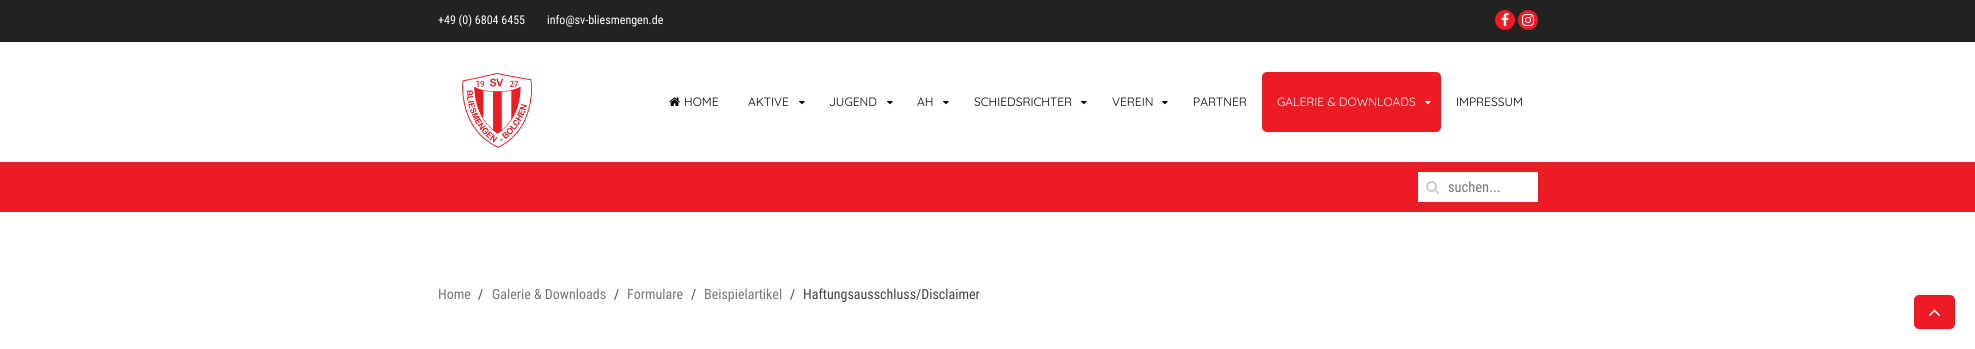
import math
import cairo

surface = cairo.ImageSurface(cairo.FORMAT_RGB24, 1975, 349)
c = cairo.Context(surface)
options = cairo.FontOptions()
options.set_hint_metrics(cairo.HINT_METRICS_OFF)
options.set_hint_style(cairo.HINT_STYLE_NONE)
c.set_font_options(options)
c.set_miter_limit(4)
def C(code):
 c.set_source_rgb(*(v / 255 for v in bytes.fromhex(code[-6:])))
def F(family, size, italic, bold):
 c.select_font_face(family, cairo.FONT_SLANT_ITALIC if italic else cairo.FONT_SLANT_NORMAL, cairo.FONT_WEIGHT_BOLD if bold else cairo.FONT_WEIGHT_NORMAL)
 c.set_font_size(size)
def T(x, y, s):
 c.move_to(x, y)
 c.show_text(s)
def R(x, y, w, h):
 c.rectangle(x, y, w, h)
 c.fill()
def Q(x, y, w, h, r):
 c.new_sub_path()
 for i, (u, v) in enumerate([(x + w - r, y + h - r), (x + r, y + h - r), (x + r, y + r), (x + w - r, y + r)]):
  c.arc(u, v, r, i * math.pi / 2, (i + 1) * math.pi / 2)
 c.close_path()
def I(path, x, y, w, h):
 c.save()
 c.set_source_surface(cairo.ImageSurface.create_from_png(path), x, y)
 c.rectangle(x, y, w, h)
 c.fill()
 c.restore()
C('ffffff')
c.paint()
C('222222')
R(0,0,1975,42)
F('Roboto Condensed',12,0,0)
C('ffffff')
T(438,24,'+49 (0) 6804 6455')
T(547,24,'info@sv-bliesmengen.de')
C('ed1b24')
c.new_path()
c.arc(1505,20,10,0,2 * math.pi)
c.fill()
I('1.png',1501,13,8,13)
c.arc(1528,20,10,0,2 * math.pi)
c.fill()
I('2.png',1522,14,12,12)
I('3.png',462,73,70,75)
I('4.png',669,97,11,9)
F('Quicksand Light',12,0,0)
C('000000')
T(684,106,'HOME')
T(748,106,'AKTIVE')
I('5.png',799,101,6,4)
T(829,106,'JUGEND')
I('5.png',887,101,6,4)
T(917,106,'AH')
I('5.png',943,101,6,4)
T(974,106,'SCHIEDSRICHTER')
I('5.png',1081,101,6,4)
T(1112,106,'VEREIN')
I('5.png',1162,101,6,4)
T(1193,106,'PARTNER')
C('ed1b24')
Q(1262,72,179,60,5)
c.fill()
C('ffffff')
T(1277,106,'GALERIE & DOWNLOADS')
I('6.png',1425,101,6,4)
C('000000')
T(1456,106,'IMPRESSUM')
C('ed1b24')
R(0,162,1975,50)
C('ffffff')
R(1418,172,120,30)
I('7.png',1426,181,13,13)
F('Roboto Condensed',14.5,0,0)
C('777777')
T(1448,192,'suchen...')
F('Roboto Condensed',14,0,0)
T(438,299,'Home')
C('444444')
T(478,299,'/')
C('777777')
T(492,299,'Galerie & Downloads')
C('444444')
T(614,299,'/')
C('777777')
T(627,299,'Formulare')
C('444444')
T(691,299,'/')
C('777777')
T(704,299,'Beispielartikel')
C('444444')
T(790,299,'/')
T(803,299,'Haftungsausschluss/Disclaimer')
C('ed1b24')
Q(1914,295,41,34,5)
c.fill()
I('8.png',1928,309,12,7)
surface.write_to_png('o.png')
